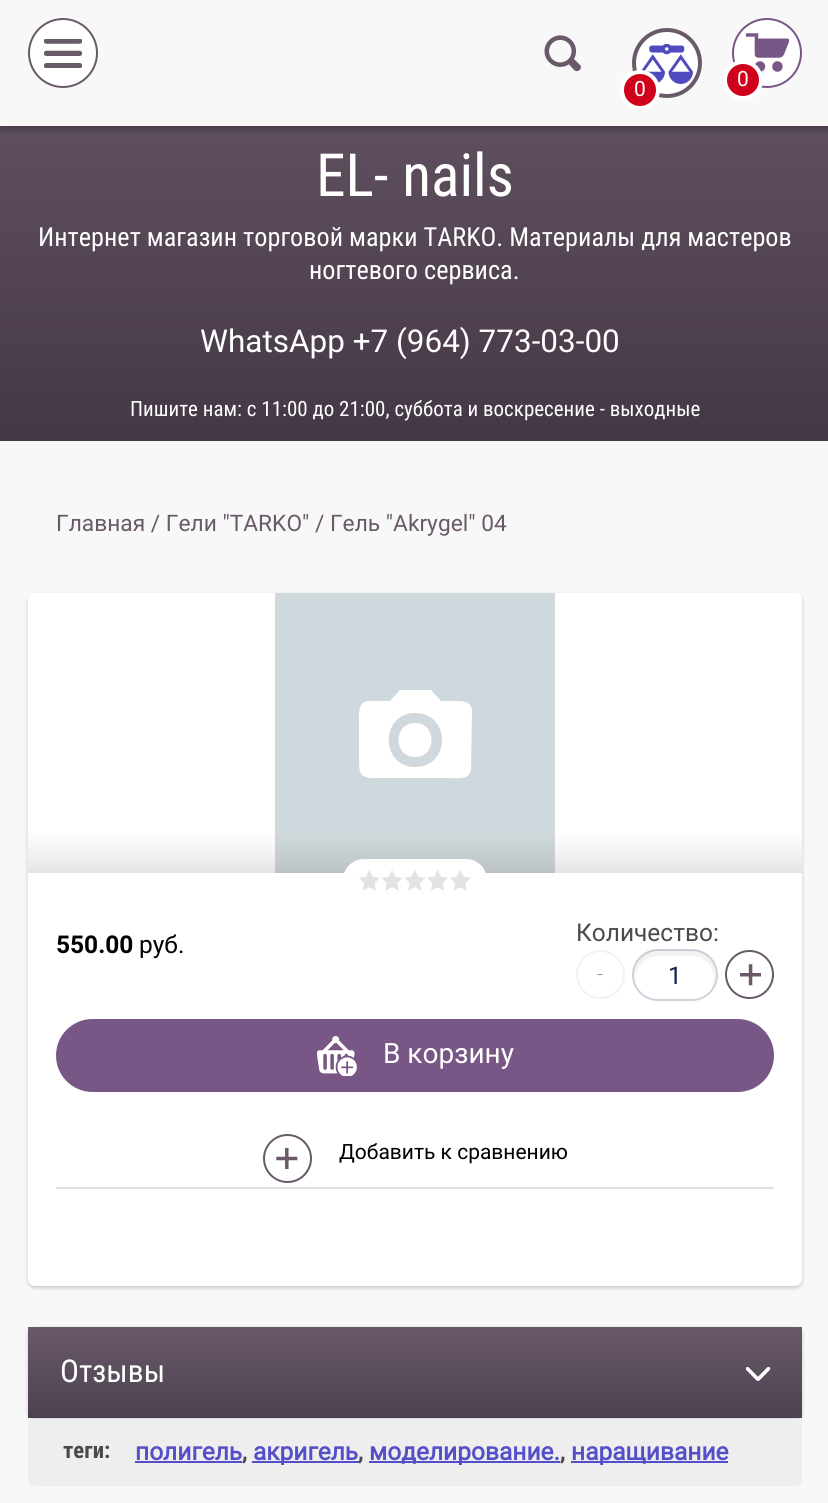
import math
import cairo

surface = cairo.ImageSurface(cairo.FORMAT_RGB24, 828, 1503)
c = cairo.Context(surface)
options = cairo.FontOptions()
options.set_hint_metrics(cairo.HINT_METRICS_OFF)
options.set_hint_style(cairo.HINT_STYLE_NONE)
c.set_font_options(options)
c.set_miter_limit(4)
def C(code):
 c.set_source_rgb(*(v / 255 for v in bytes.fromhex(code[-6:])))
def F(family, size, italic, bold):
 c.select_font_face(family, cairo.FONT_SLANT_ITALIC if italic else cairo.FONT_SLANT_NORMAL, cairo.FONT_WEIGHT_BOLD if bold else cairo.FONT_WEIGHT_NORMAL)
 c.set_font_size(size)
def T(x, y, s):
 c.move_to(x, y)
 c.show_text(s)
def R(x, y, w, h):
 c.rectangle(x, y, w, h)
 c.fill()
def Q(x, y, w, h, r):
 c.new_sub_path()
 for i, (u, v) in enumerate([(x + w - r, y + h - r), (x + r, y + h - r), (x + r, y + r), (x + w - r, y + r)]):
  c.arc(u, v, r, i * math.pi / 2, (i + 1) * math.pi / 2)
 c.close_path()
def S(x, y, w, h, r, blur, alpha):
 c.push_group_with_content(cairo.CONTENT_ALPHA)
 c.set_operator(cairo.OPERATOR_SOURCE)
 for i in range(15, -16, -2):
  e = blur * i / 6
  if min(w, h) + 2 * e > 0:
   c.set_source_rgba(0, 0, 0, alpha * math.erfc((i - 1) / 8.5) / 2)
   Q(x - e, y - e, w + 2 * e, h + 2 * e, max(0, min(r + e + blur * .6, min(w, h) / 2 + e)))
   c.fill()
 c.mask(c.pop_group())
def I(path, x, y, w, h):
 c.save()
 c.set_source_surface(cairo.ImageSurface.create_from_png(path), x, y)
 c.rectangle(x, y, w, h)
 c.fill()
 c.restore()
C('f8f8f8')
c.paint()
gradient = cairo.LinearGradient(415,441,415,0)
gradient.add_color_stop_rgba(0,0.267,0.216,0.271,1)
gradient.add_color_stop_rgba(1,0.412,0.349,0.412,1)
c.set_source(gradient)
R(0,126,828,315)
c.save()
c.rectangle(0,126,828,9)
c.clip()
C('000000')
S(0,4,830,126,0,3.5,.25)
c.restore()
C('ffffff')
c.arc(63,53,34,0,2 * math.pi)
c.fill_preserve()
C('695969')
c.stroke()
I('1.png',44,39,38,29)
I('2.png',544,35,37,37)
C('ffffff')
c.arc(667,63,35,0,2 * math.pi)
c.fill()
I('3.png',641,44,52,40)
c.arc(667,63,33,0,2 * math.pi)
C('695969')
c.set_line_width(4)
c.stroke()
C('d0021b')
c.arc(640,90,18,0,2 * math.pi)
c.fill_preserve()
C('ffffff')
c.stroke()
F('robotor',21,0,0)
T(634,96,'0')
c.new_path()
c.arc(767,53,35,0,2 * math.pi)
c.fill()
I('4.png',746,33,43,39)
c.arc(767,53,34,0,2 * math.pi)
C('785786')
c.set_line_width(2)
c.stroke()
C('d0021b')
c.arc(743,80,18,0,2 * math.pi)
c.fill_preserve()
C('ffffff')
c.set_line_width(4)
c.stroke()
T(737,86,'0')
F('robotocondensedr',59.5,0,0)
T(316,196,'EL- nails')
F('robotocondensedr',26.25,0,0)
T(38,246,'Интернет магазин торговой марки TARKO. Материалы для мастеров')
T(309,279,'ногтевого сервиса.')
F('robotor',31.5,0,0)
T(200,352,'WhatsApp +7 (964) 773-03-00')
F('robotocondensedr',21,0,0)
T(130,416,'Пишите нам: с 11:00 до 21:00, суббота и воскресение - выходные')
F('robotor',22.75,0,0)
C('695969')
T(56,531,'Главная / Гели "TARKO" / Гель "Akrygel" 04')
C('000000')
S(28,595,774,693,7,2,.2)
C('ffffff')
Q(28,593,774,693,7)
c.fill()
c.new_path()
c.move_to(35,597)
c.line_to(794,597)
c.curve_to(798,597,802,600,802,604)
c.curve_to(802,599,801,593,795,593)
c.line_to(35,593)
c.curve_to(29,593,28,599,28,604)
c.curve_to(28,600,31,597,35,597)
c.close_path()
c.fill()
C('cfd8dc')
c.set_fill_rule(cairo.FILL_RULE_EVEN_ODD)
c.new_path()
c.move_to(275,873)
c.line_to(275,593)
c.line_to(555,593)
c.line_to(555,873)
c.close_path()
c.move_to(472,712)
c.curve_to(472,701,463,701,455,701)
c.line_to(441,701)
c.line_to(431,690)
c.line_to(400,690)
c.line_to(390,701)
c.line_to(367,701)
c.curve_to(358,703,359,714,359,721)
c.line_to(359,759)
c.curve_to(359,772,359,778,374,778)
c.line_to(447,778)
c.curve_to(455,778,469,781,471,770)
c.close_path()
c.move_to(415,767)
c.curve_to(380,767,380,713,415,713)
c.curve_to(451,713,451,767,415,767)
c.close_path()
c.move_to(415,723)
c.curve_to(393,723,393,757,415,757)
c.curve_to(437,757,437,723,415,723)
c.close_path()
c.fill()
gradient = cairo.LinearGradient(415,824,415,873)
gradient.add_color_stop_rgba(0,1,1,1,.04)
gradient.add_color_stop_rgba(1,0,0,0,.11)
c.set_source(gradient)
R(28,833,774,40)
C('ffffff')
Q(343,859,144,42,21)
c.fill()
I('5.png',359,870,112,21)
F('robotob',24.5,0,1)
C('000000')
T(56,953,'550.00')
F('robotor',24.5,0,0)
T(139,953,'руб.')
C('4a4a4a')
T(576,941,'Количество:')
c.new_path()
c.arc(600.5,974.5,23.5,0,2 * math.pi)
C('f2f2f2')
c.set_line_width(2)
c.stroke()
F('Liberation Sans',10,0,0)
C('626262')
T(597,978,'−')
C('f2f2f2')
c.set_fill_rule(cairo.FILL_RULE_WINDING)
c.new_path()
c.move_to(658,956)
c.line_to(691,956)
c.curve_to(704,956,714,966,714,978)
c.curve_to(714,982,713,985,712,989)
c.curve_to(720,976,715,958,701,952)
c.curve_to(693,949,683,950,675,950)
c.curve_to(668,950,660,949,654,950)
c.curve_to(639,953,630,969,636,983)
c.curve_to(633,969,644,956,658,956)
c.close_path()
c.fill()
Q(633,950,84,50,25)
c.set_source_rgba(0.02,0.125,0.31,0.2)
c.stroke()
F('robotor',24.5,0,0)
C('05214f')
T(668,984,'1')
I('6.png',740,964,21,22)
c.arc(749.5,974.5,23.5,0,2 * math.pi)
C('695969')
c.stroke()
C('785786')
Q(56,1019,718,73,36.5)
c.fill()
I('7.png',317,1036,40,40)
F('robotor',28,0,0)
C('ffffff')
T(383,1063,'В корзину')
C('dedede')
R(56,1187,718,2)
I('8.png',276,1147,22,23)
c.arc(287.5,1158.5,23.5,0,2 * math.pi)
C('695969')
c.stroke()
F('robotor',21,0,0)
C('000000')
T(339,1159,'Добавить к сравнению')
C('000000')
S(28,1328,774,91,7,2,.2)
gradient = cairo.LinearGradient(415,1327,415,1418)
gradient.add_color_stop_rgba(0,0.412,0.349,0.412,1)
gradient.add_color_stop_rgba(1,0.298,0.255,0.314,1)
c.set_source(gradient)
R(28,1327,774,91)
F('robotocondensedr',31.5,0,0)
C('ffffff')
T(60,1382,'Отзывы')
I('9.png',745,1366,26,15)
C('eeeeee')
c.new_path()
c.move_to(28,1419)
c.line_to(802,1419)
c.line_to(802,1479)
c.curve_to(802,1483,799,1486,795,1486)
c.line_to(35,1486)
c.curve_to(31,1486,28,1483,28,1479)
c.close_path()
c.fill()
F('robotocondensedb',22.75,0,1)
C('4a4a4a')
T(63,1458,'теги:')
F('robotor',24.5,0,1)
C('544fc9')
T(135,1460,'полигель')
R(135,1461,107,2)
C('4a4a4a')
T(242,1460,',')
C('544fc9')
R(252,1461,107,2)
T(253,1460,'акригель')
C('4a4a4a')
T(358,1460,',')
C('544fc9')
R(369,1461,191,2)
T(369,1460,'моделирование.')
C('4a4a4a')
T(560,1460,',')
C('544fc9')
R(571,1461,157,2)
T(571,1460,'наращивание')
surface.write_to_png('o.png')
